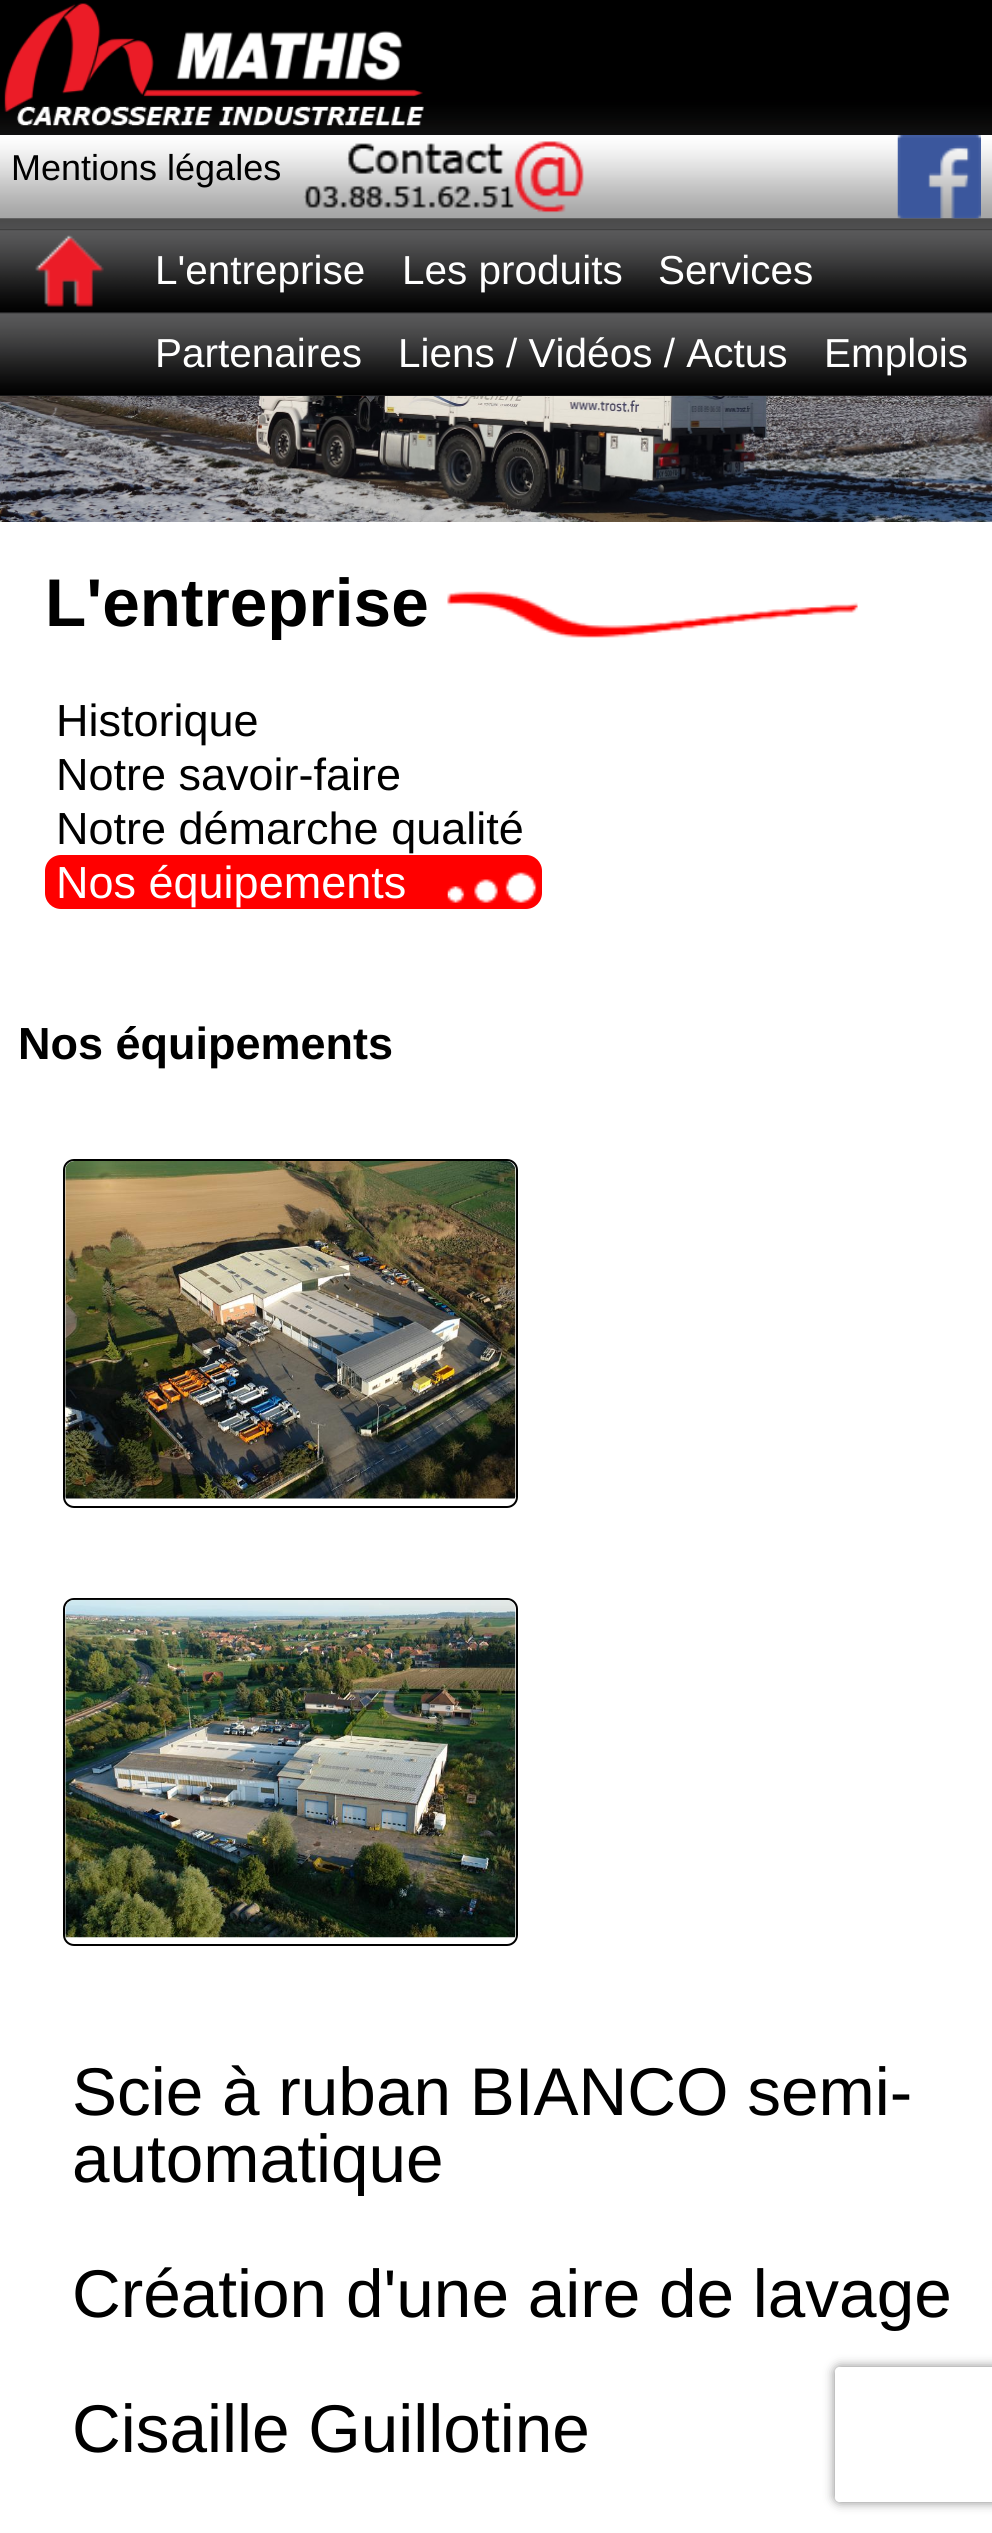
import math
import cairo

surface = cairo.ImageSurface(cairo.FORMAT_RGB24, 992, 2533)
c = cairo.Context(surface)
options = cairo.FontOptions()
options.set_hint_metrics(cairo.HINT_METRICS_OFF)
options.set_hint_style(cairo.HINT_STYLE_NONE)
c.set_font_options(options)
c.set_miter_limit(4)
def C(code):
 c.set_source_rgb(*(v / 255 for v in bytes.fromhex(code[-6:])))
def F(family, size, italic, bold):
 c.select_font_face(family, cairo.FONT_SLANT_ITALIC if italic else cairo.FONT_SLANT_NORMAL, cairo.FONT_WEIGHT_BOLD if bold else cairo.FONT_WEIGHT_NORMAL)
 c.set_font_size(size)
def T(x, y, s):
 c.move_to(x, y)
 c.show_text(s)
def Q(x, y, w, h, r):
 c.new_sub_path()
 for i, (u, v) in enumerate([(x + w - r, y + h - r), (x + r, y + h - r), (x + r, y + r), (x + w - r, y + r)]):
  c.arc(u, v, r, i * math.pi / 2, (i + 1) * math.pi / 2)
 c.close_path()
def S(x, y, w, h, r, blur, alpha):
 c.push_group_with_content(cairo.CONTENT_ALPHA)
 c.set_operator(cairo.OPERATOR_SOURCE)
 for i in range(15, -16, -2):
  e = blur * i / 6
  if min(w, h) + 2 * e > 0:
   c.set_source_rgba(0, 0, 0, alpha * math.erfc((i - 1) / 8.5) / 2)
   Q(x - e, y - e, w + 2 * e, h + 2 * e, max(0, min(r + e + blur * .6, min(w, h) / 2 + e)))
   c.fill()
 c.mask(c.pop_group())
def I(path, x, y, w, h):
 c.save()
 c.set_source_surface(cairo.ImageSurface.create_from_png(path), x, y)
 c.rectangle(x, y, w, h)
 c.fill()
 c.restore()
C('ffffff')
c.paint()
I('1.png',0,0,992,230)
I('2.png',4,3,420,123)
I('3.png',0,135,992,84)
F('Liberation Sans',36,0,0)
C('000000')
T(11,180,'Mentions légales')
I('4.png',303,141,281,72)
I('5.png',897,135,84,84)
I('6.png',0,229,992,167)
I('7.png',35,235,69,72)
F('Liberation Sans',40.5,0,0)
C('ffffff')
T(155,284,'L\'entreprise')
T(402,284,'Les produits')
T(658,284,'Services')
T(155,367,'Partenaires')
T(398,367,'Liens / Vidéos / Actus')
T(824,367,'Emplois')
I('8.png',0,396,992,126)
F('Liberation Sans',67.5,0,1)
C('000000')
T(45,626,'L\'entreprise')
I('9.png',447,591,411,47)
F('Liberation Sans',45,0,0)
T(56,736,'Historique')
T(56,790,'Notre savoir-faire')
T(56,844,'Notre démarche qualité')
C('ff0000')
Q(45,855,497,54,16)
c.fill()
I('10.png',447,872,90,31)
C('ffffff')
T(56,898,'Nos équipements')
F('Liberation Sans',45,0,1)
C('000000')
T(18,1059,'Nos équipements')
Q(64,1160,453,347,10)
c.stroke()
I('11.png',65,1161,451,338)
Q(64,1599,453,346,10)
c.stroke()
I('12.png',65,1599,451,339)
F('Liberation Sans',67.5,0,0)
T(72,2115,'Scie à ruban BIANCO semi-')
T(72,2182,'automatique')
T(72,2317,'Création d\'une aire de lavage')
T(72,2452,'Cisaille Guillotine')
c.save()
c.set_fill_rule(cairo.FILL_RULE_EVEN_ODD)
c.new_path()
c.move_to(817,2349)
c.line_to(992,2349)
c.line_to(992,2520)
c.line_to(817,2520)
c.close_path()
c.move_to(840,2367)
c.line_to(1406,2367)
c.curve_to(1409,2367,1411,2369,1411,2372)
c.line_to(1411,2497)
c.curve_to(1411,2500,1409,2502,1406,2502)
c.line_to(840,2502)
c.curve_to(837,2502,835,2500,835,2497)
c.line_to(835,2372)
c.curve_to(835,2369,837,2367,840,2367)
c.close_path()
c.clip()
C('808080')
S(835,2367,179,135,5,5.5,1)
c.restore()
surface.write_to_png('o.png')
